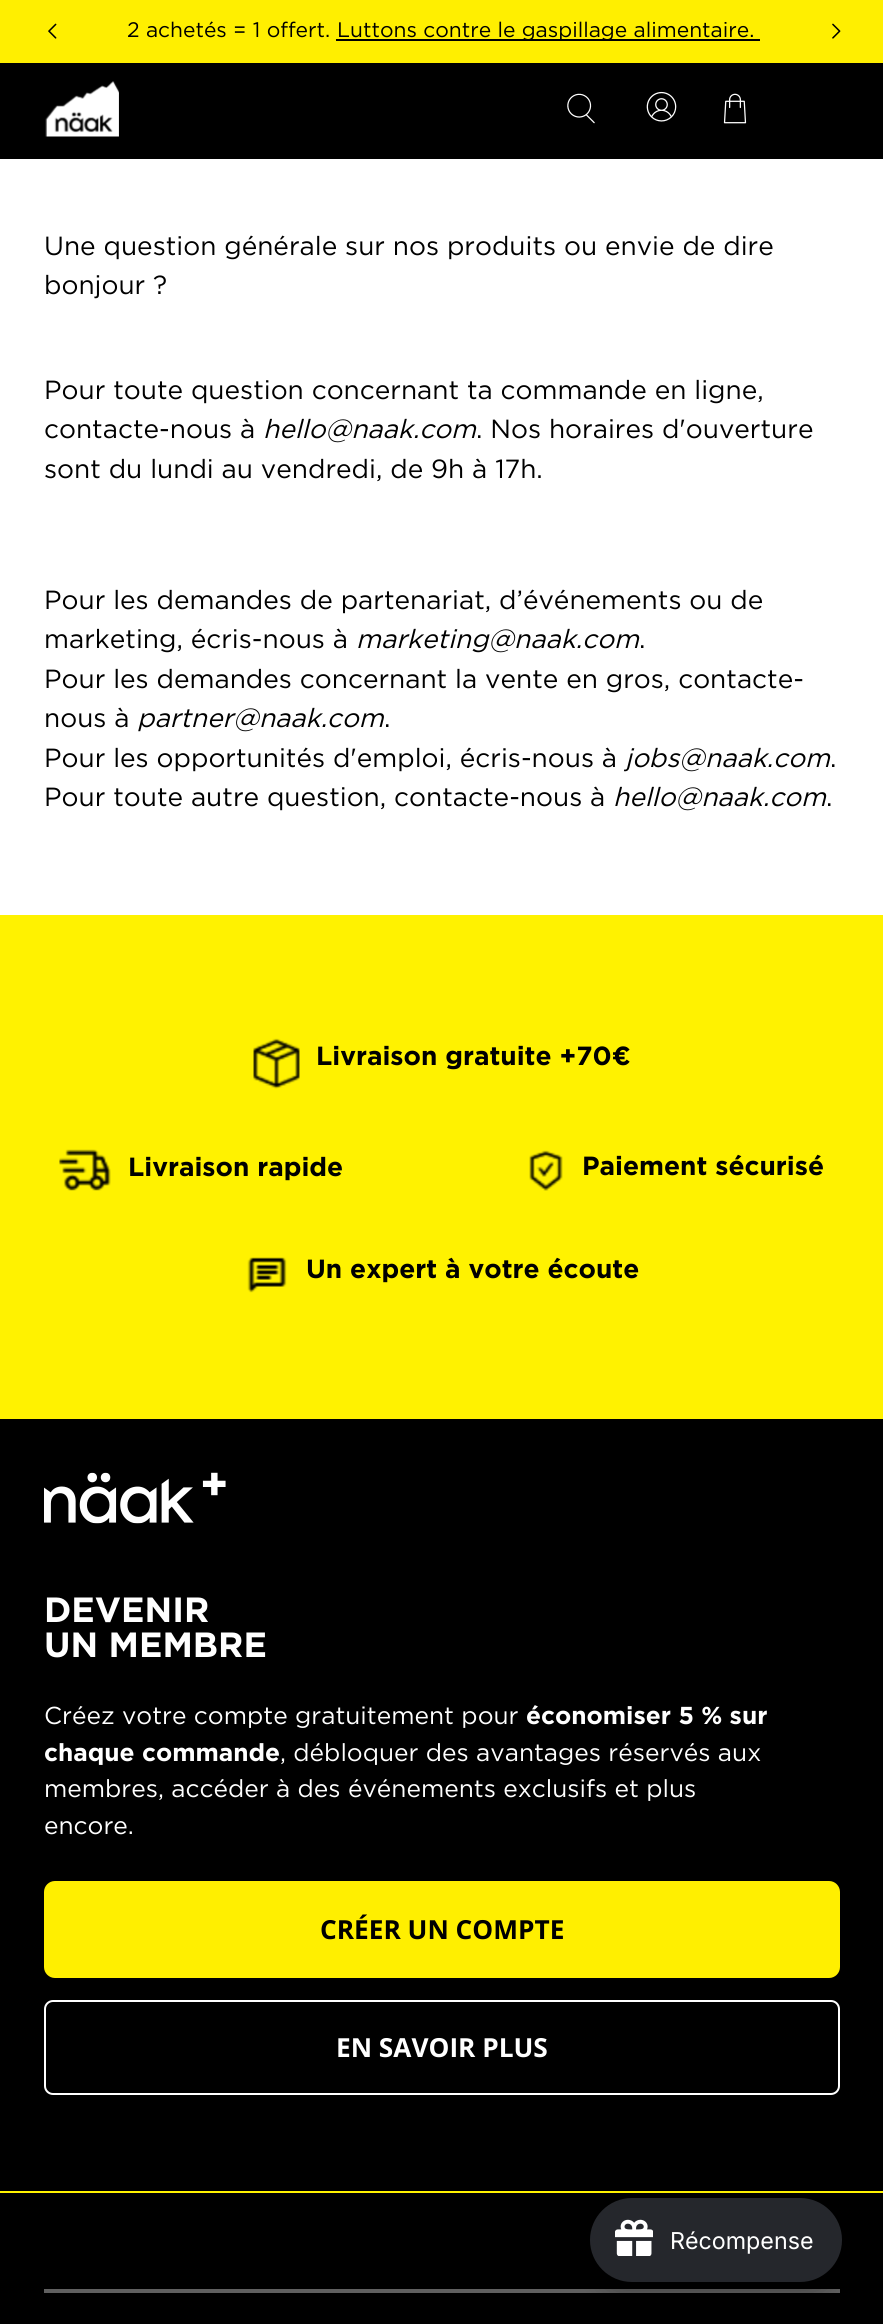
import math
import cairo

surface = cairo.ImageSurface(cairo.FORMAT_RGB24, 883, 2324)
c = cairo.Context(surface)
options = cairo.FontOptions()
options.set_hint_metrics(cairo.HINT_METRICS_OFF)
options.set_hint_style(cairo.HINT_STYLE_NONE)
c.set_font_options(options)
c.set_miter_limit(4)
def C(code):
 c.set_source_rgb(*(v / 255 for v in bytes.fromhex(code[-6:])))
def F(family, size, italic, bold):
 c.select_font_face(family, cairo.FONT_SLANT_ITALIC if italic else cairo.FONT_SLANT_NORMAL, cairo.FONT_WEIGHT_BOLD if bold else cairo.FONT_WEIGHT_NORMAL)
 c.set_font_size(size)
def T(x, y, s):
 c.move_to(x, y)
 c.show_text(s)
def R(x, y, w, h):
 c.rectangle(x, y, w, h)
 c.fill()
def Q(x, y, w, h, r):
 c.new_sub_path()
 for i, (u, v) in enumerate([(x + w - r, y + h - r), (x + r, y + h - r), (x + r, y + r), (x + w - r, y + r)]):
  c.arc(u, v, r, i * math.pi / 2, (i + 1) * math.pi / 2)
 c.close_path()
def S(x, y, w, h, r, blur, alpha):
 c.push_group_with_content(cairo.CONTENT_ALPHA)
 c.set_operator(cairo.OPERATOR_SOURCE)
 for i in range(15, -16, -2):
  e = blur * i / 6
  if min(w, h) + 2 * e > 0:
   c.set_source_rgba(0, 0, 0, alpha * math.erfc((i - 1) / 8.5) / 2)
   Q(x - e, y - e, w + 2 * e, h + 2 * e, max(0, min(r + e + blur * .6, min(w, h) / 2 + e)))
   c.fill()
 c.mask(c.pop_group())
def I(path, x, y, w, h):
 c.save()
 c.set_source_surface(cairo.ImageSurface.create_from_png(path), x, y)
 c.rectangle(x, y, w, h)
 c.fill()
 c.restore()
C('ffffff')
c.paint()
C('ffef00')
R(0,0,883,63)
I('1.png',48,23,9,16)
F('Gotham',21,0,0)
C('000000')
T(127,37,'2 achetés = 1 offert.')
R(336,39,424,2)
T(337,37,'Luttons contre le gaspillage alimentaire.')
I('2.png',832,23,9,16)
R(0,63,883,96)
I('3.png',45,81,74,56)
I('4.png',567,93,28,31)
I('5.png',646,91,31,31)
I('6.png',723,93,24,31)
F('Gotham',26.25,0,0)
T(44,255,'Une question générale sur nos produits ou envie de dire')
T(44,294,'bonjour ?')
T(44,399,'Pour toute question concernant ta commande en ligne,')
T(44,438,'contacte-nous à')
F('Gotham',26.25,1,0)
T(263,438,'hello@naak.com')
F('Gotham',26.25,0,0)
T(476,438,'. Nos horaires d\'ouverture')
T(44,478,'sont du lundi au vendredi, de 9h à 17h.')
T(44,609,'Pour les demandes de partenariat, d’événements ou de')
T(44,648,'marketing, écris-nous à')
F('Gotham',26.25,1,0)
T(356,648,'marketing@naak.com')
F('Gotham',26.25,0,0)
T(639,648,'.')
T(44,688,'Pour les demandes concernant la vente en gros, contacte-')
T(44,727,'nous à')
F('Gotham',26.25,1,0)
T(137,727,'partner@naak.com')
F('Gotham',26.25,0,0)
T(384,727,'.')
T(44,767,'Pour les opportunités d\'emploi, écris-nous à')
F('Gotham',26.25,1,0)
T(625,767,'jobs@naak.com')
F('Gotham',26.25,0,0)
T(830,767,'.')
T(44,806,'Pour toute autre question, contacte-nous à')
F('Gotham',26.25,1,0)
T(613,806,'hello@naak.com')
F('Gotham',26.25,0,0)
T(826,806,'.')
C('fff200')
R(0,915,883,504)
I('7.png',253,1038,47,51)
F('Gotham',26.25,0,1)
C('000000')
T(316,1065,'Livraison gratuite +70€')
I('8.png',59,1149,52,42)
T(128,1176,'Livraison rapide')
I('9.png',529,1150,34,41)
T(582,1175,'Paiement sécurisé')
I('10.png',247,1257,40,36)
T(306,1278,'Un expert à votre écoute')
R(0,1419,883,905)
C('fff200')
R(0,2191,883,2)
I('11.png',44,1472,182,52)
F('Gotham',35,0,1)
C('ffffff')
T(44,1622,'DEVENIR')
T(44,1657,'UN MEMBRE')
F('Gotham',24.5,0,0)
T(44,1724,'Créez votre compte gratuitement pour')
F('Gotham',24.5,0,1)
T(526,1724,'économiser 5 % sur')
T(44,1761,'chaque commande')
F('Gotham',24.5,0,0)
T(280,1761,', débloquer des avantages réservés aux')
T(44,1797,'membres, accéder à des événements exclusifs et plus')
T(44,1834,'encore.')
C('ffef00')
Q(44,1881,796,97,11)
c.fill()
F('Open Sans',26.25,0,1)
C('000000')
T(320,1939,'CRÉER UN COMPTE')
Q(45,2001,794,93,8)
C('ffffff')
c.stroke()
T(336,2057,'EN SAVOIR PLUS')
C('606060')
R(44,2289,796,4)
C('000000')
S(590,2209,252,84,42,10.5,.25)
C('25272c')
Q(590,2198,252,84,42)
c.fill()
I('12.png',615,2219,38,37)
F('Inter',23.25,0,0)
C('ffffff')
T(670,2249,'Récompense')
surface.write_to_png('o.png')
